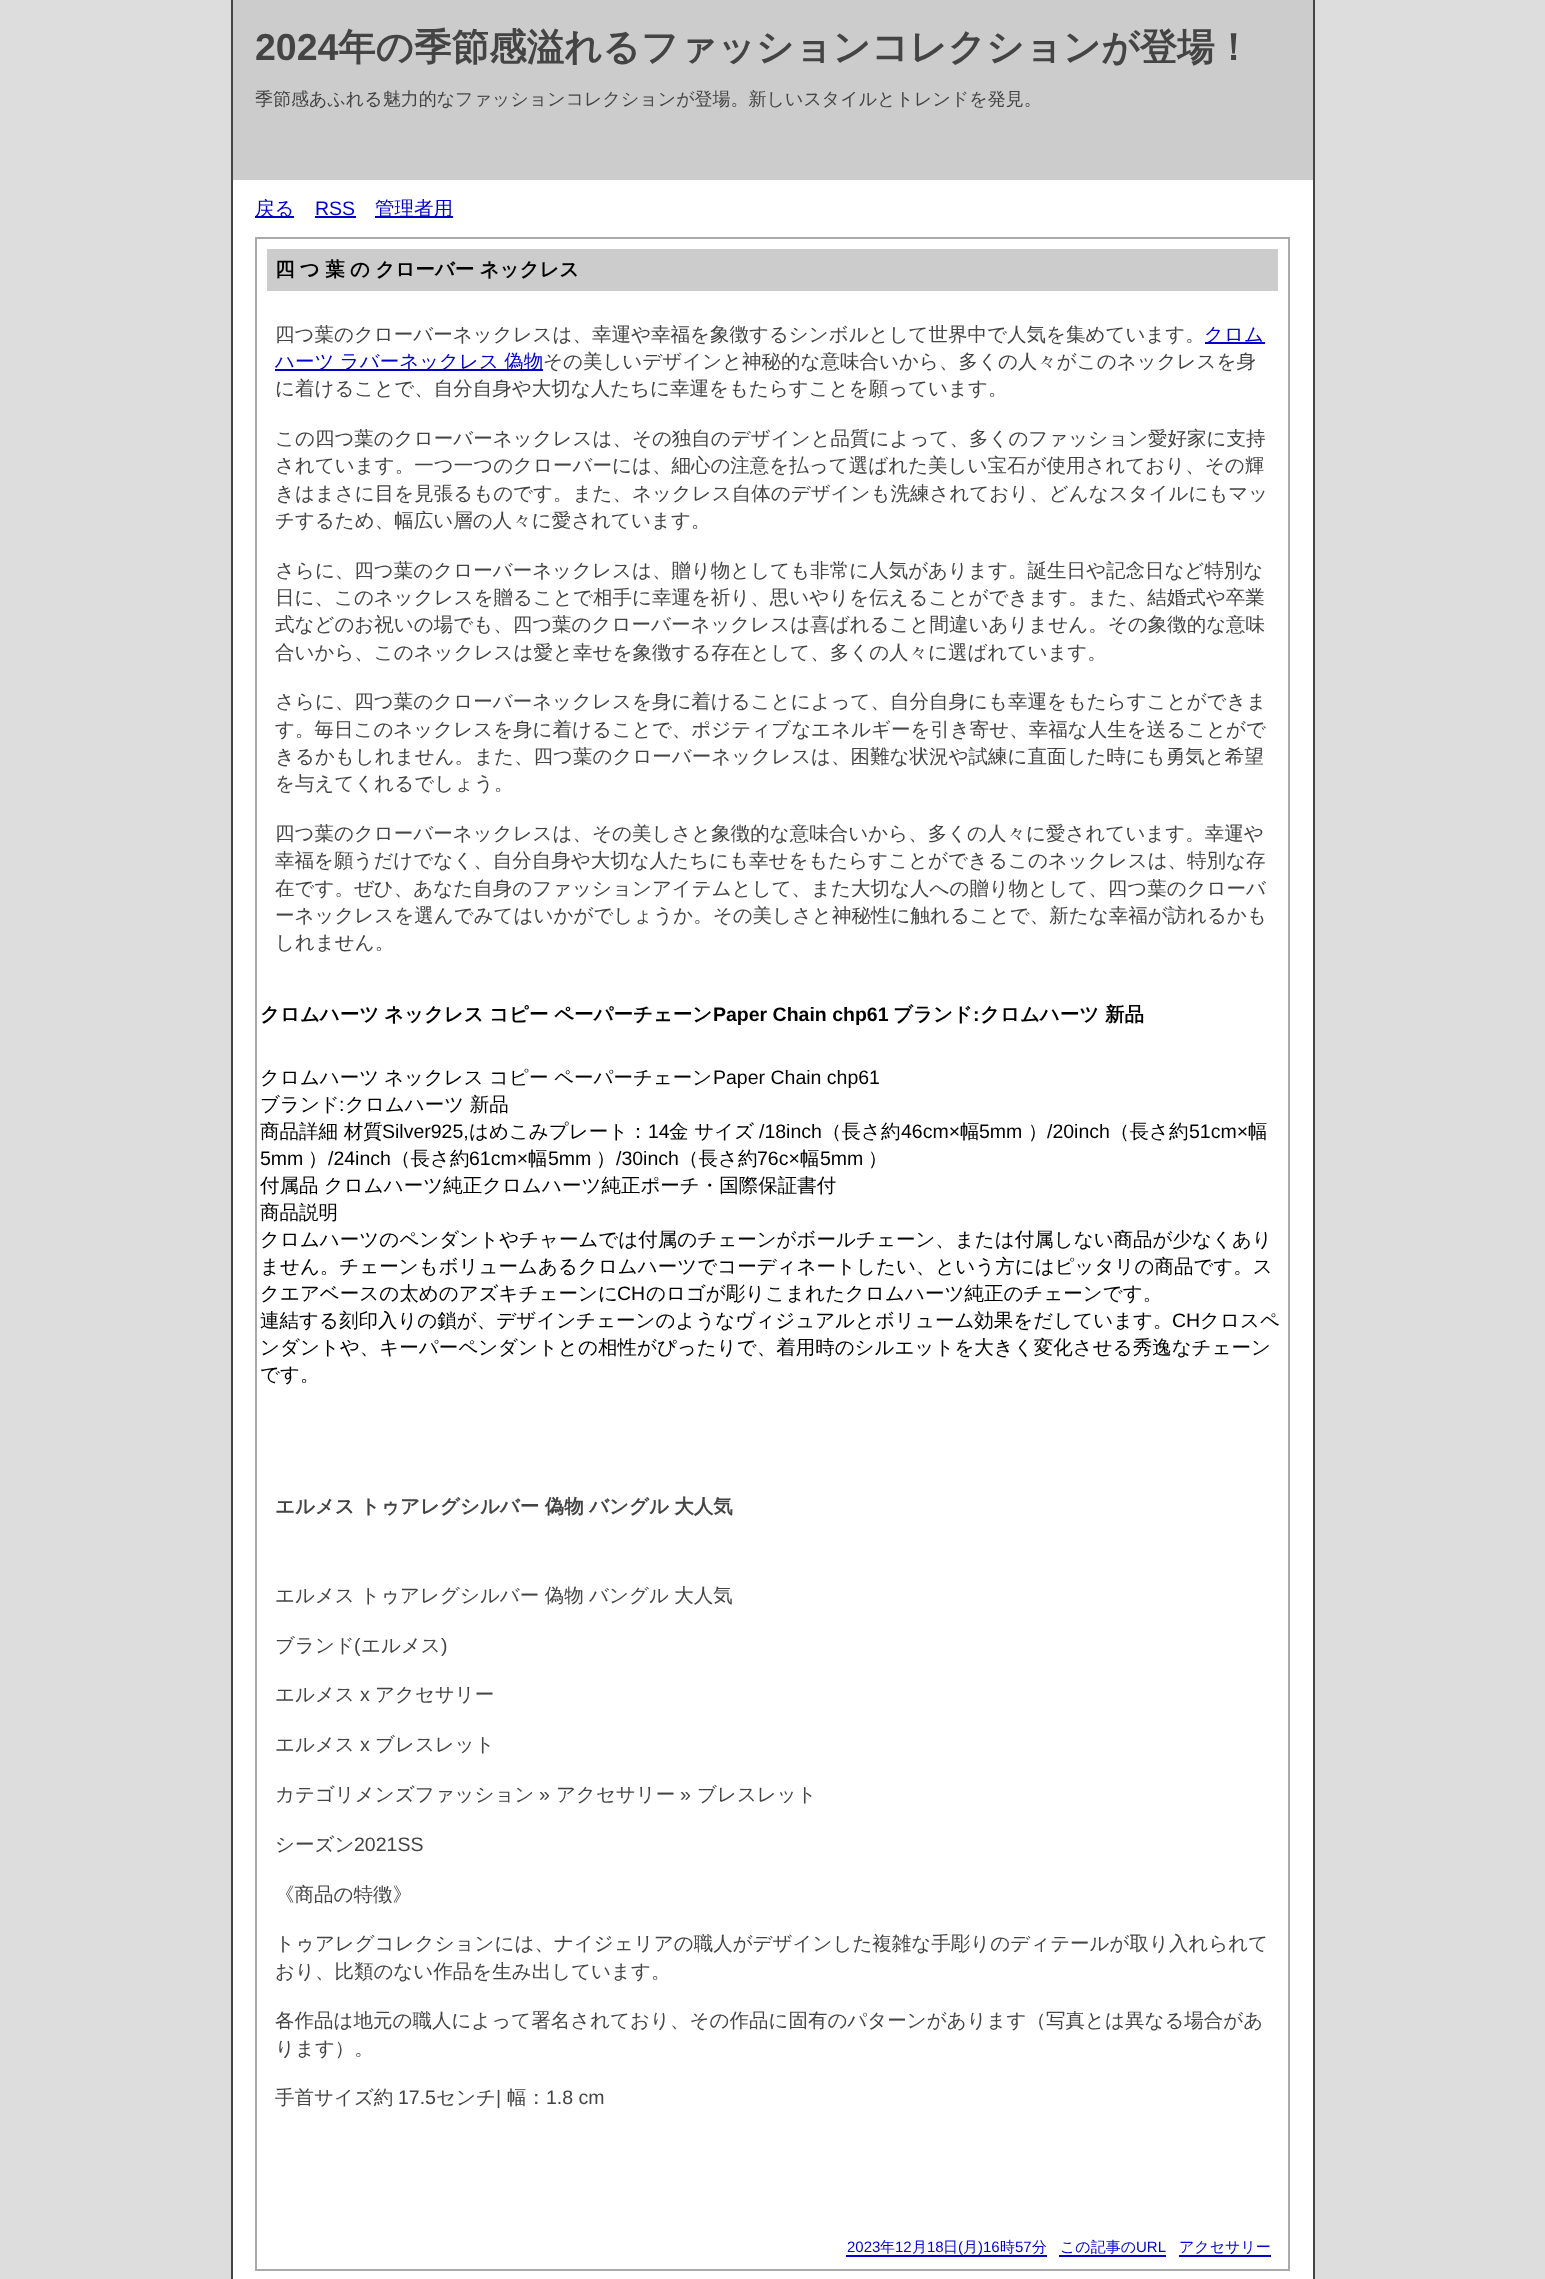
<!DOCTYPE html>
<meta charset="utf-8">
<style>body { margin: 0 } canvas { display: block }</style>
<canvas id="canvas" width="1545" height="2279"></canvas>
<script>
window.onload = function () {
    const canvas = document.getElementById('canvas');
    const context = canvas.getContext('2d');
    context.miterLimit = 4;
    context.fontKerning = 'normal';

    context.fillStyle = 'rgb(221, 221, 221)';
    context.fillRect(0, 0, 1545, 2279);
    context.fillStyle = 'rgb(255, 255, 255)';
    context.fillRect(233, 180, 1080, 2099);
    context.fillStyle = 'rgb(68, 68, 68)';
    context.fillRect(1313, 0, 2, 2279);
    context.fillRect(231, 0, 2, 2279);
    context.fillStyle = 'rgb(204, 204, 204)';
    context.fillRect(233, 0, 1080, 180);
    context.fillStyle = 'rgb(0, 0, 204)';
    context.fillRect(255, 216, 39, 2);
    context.fillRect(315, 216, 41, 2);
    context.fillRect(375, 216, 78, 2);
    context.strokeStyle = 'rgb(170, 170, 170)';
    context.lineWidth = 2;
    context.strokeRect(256, 238, 1033, 2032);
    context.fillStyle = 'rgb(204, 204, 204)';
    context.fillRect(267, 249, 1011, 42);
    context.fillStyle = 'rgb(0, 0, 204)';
    context.fillRect(1205, 342, 60, 2);
    context.fillRect(275, 369, 268, 2);
    context.fillRect(846, 2255, 201, 2);
    context.fillRect(1059, 2255, 107, 2);
    context.fillRect(1179, 2255, 92, 2);
    context.font = 'bold 37.5px Liberation Sans';
    context.fillStyle = 'rgb(68, 68, 68)';
    context.fillText('2024', 255, 60);
    context.font = 'bold 37.5px WenQuanYi Zen Hei';
    context.fillText('年の季節感溢れるファッションコレクションが登場！', 338, 60);
    context.font = '500 18px WenQuanYi Zen Hei';
    context.fillText('季節感あふれる魅力的なファッションコレクションが登場。新しいスタイルとトレンドを発見。', 255, 105);
    context.font = '500 19.5px WenQuanYi Zen Hei';
    context.fillStyle = 'rgb(0, 0, 204)';
    context.fillText('戻る', 255, 215);
    context.font = '19.5px Liberation Sans';
    context.fillText('RSS', 315, 215);
    context.font = '500 19.5px WenQuanYi Zen Hei';
    context.fillText('管理者用', 375, 215);
    context.wordSpacing = '-0.5px';
    context.font = 'bold 19.5px WenQuanYi Zen Hei';
    context.fillStyle = 'rgb(0, 0, 0)';
    context.fillText('四 つ 葉 の クローバー ネックレス', 275, 276);
    context.wordSpacing = '0px';
    context.font = '500 19.5px WenQuanYi Zen Hei';
    context.fillStyle = 'rgb(68, 68, 68)';
    context.fillText('四つ葉のクローバーネックレスは、幸運や幸福を象徴するシンボルとして世界中で人気を集めています。', 275, 341);
    context.fillStyle = 'rgb(0, 0, 204)';
    context.fillText('クロム', 1204, 341);
    context.wordSpacing = '-0.5px';
    context.fillText('ハーツ ラバーネックレス 偽物', 275, 368);
    context.wordSpacing = '0px';
    context.fillStyle = 'rgb(68, 68, 68)';
    context.fillText('その美しいデザインと神秘的な意味合いから、多くの人々がこのネックレスを身', 543, 368);
    context.fillText('に着けることで、自分自身や大切な人たちに幸運をもたらすことを願っています。', 275, 395);
    context.fillText('この四つ葉のクローバーネックレスは、その独自のデザインと品質によって、多くのファッション愛好家に支持', 275, 445);
    context.fillText('されています。一つ一つのクローバーには、細心の注意を払って選ばれた美しい宝石が使用されており、その輝', 275, 472);
    context.fillText('きはまさに目を見張るものです。また、ネックレス自体のデザインも洗練されており、どんなスタイルにもマッ', 275, 500);
    context.fillText('チするため、幅広い層の人々に愛されています。', 275, 527);
    context.fillText('さらに、四つ葉のクローバーネックレスは、贈り物としても非常に人気があります。誕生日や記念日など特別な', 275, 577);
    context.fillText('日に、このネックレスを贈ることで相手に幸運を祈り、思いやりを伝えることができます。また、結婚式や卒業', 275, 604);
    context.fillText('式などのお祝いの場でも、四つ葉のクローバーネックレスは喜ばれること間違いありません。その象徴的な意味', 275, 631);
    context.fillText('合いから、このネックレスは愛と幸せを象徴する存在として、多くの人々に選ばれています。', 275, 659);
    context.fillText('さらに、四つ葉のクローバーネックレスを身に着けることによって、自分自身にも幸運をもたらすことができま', 275, 708);
    context.fillText('す。毎日このネックレスを身に着けることで、ポジティブなエネルギーを引き寄せ、幸福な人生を送ることがで', 275, 736);
    context.fillText('きるかもしれません。また、四つ葉のクローバーネックレスは、困難な状況や試練に直面した時にも勇気と希望', 275, 763);
    context.fillText('を与えてくれるでしょう。', 275, 790);
    context.fillText('四つ葉のクローバーネックレスは、その美しさと象徴的な意味合いから、多くの人々に愛されています。幸運や', 275, 840);
    context.fillText('幸福を願うだけでなく、自分自身や大切な人たちにも幸せをもたらすことができるこのネックレスは、特別な存', 275, 867);
    context.fillText('在です。ぜひ、あなた自身のファッションアイテムとして、また大切な人への贈り物として、四つ葉のクローバ', 275, 895);
    context.fillText('ーネックレスを選んでみてはいかがでしょうか。その美しさと神秘性に触れることで、新たな幸福が訪れるかも', 275, 922);
    context.fillText('しれません。', 275, 949);
    context.font = 'bold 19.5px WenQuanYi Zen Hei';
    context.fillStyle = 'rgb(0, 0, 0)';
    context.fillText('クロムハーツ', 260, 1021);
    context.fillText('ネックレス', 384, 1021);
    context.fillText('コピー', 489, 1021);
    context.fillText('ペーパーチェーン', 554, 1021);
    context.font = 'bold 19.5px Liberation Sans';
    context.fillText('Paper Chain chp61', 713, 1021);
    context.font = 'bold 19.5px WenQuanYi Zen Hei';
    context.fillText('ブランド', 893, 1021);
    context.font = 'bold 19.5px Liberation Sans';
    context.fillText(':', 973, 1021);
    context.font = 'bold 19.5px WenQuanYi Zen Hei';
    context.fillText('クロムハーツ', 980, 1021);
    context.fillText('新品', 1105, 1021);
    context.font = '500 19.5px WenQuanYi Zen Hei';
    context.fillText('クロムハーツ', 260, 1084);
    context.fillText('ネックレス', 384, 1084);
    context.fillText('コピー', 489, 1084);
    context.fillText('ペーパーチェーン', 554, 1084);
    context.font = '19.5px Liberation Sans';
    context.fillText('Paper Chain chp61', 713, 1084);
    context.font = '500 19.5px WenQuanYi Zen Hei';
    context.fillText('ブランド', 260, 1111);
    context.font = '19.5px Liberation Sans';
    context.fillText(':', 339, 1111);
    context.wordSpacing = '-0.5px';
    context.font = '500 19.5px WenQuanYi Zen Hei';
    context.fillText('クロムハーツ 新品', 345, 1111);
    context.wordSpacing = '0px';
    context.fillText('商品詳細 材質', 260, 1138);
    context.font = '19.5px Liberation Sans';
    context.fillText('Silver925,', 382, 1138);
    context.font = '500 19.5px WenQuanYi Zen Hei';
    context.fillText('はめこみプレート：', 469, 1138);
    context.font = '19.5px Liberation Sans';
    context.fillText('14', 648, 1138);
    context.font = '500 19.5px WenQuanYi Zen Hei';
    context.fillText('金 サイズ', 669, 1138);
    context.font = '19.5px Liberation Sans';
    context.fillText('/18inch', 759, 1138);
    context.font = '500 19.5px WenQuanYi Zen Hei';
    context.fillText('（長さ約', 822, 1138);
    context.font = '19.5px Liberation Sans';
    context.fillText('46cm×', 901, 1138);
    context.font = '500 19.5px WenQuanYi Zen Hei';
    context.fillText('幅', 960, 1138);
    context.font = '19.5px Liberation Sans';
    context.fillText('5mm', 979, 1138);
    context.font = '500 19.5px WenQuanYi Zen Hei';
    context.fillText('）', 1028, 1138);
    context.font = '19.5px Liberation Sans';
    context.fillText('/20inch', 1047, 1138);
    context.font = '500 19.5px WenQuanYi Zen Hei';
    context.fillText('（長さ約', 1110, 1138);
    context.font = '19.5px Liberation Sans';
    context.fillText('51cm×', 1189, 1138);
    context.font = '500 19.5px WenQuanYi Zen Hei';
    context.fillText('幅', 1248, 1138);
    context.font = '19.5px Liberation Sans';
    context.fillText('5mm', 260, 1165);
    context.font = '500 19.5px WenQuanYi Zen Hei';
    context.fillText('）', 308, 1165);
    context.font = '19.5px Liberation Sans';
    context.fillText('/24inch', 328, 1165);
    context.font = '500 19.5px WenQuanYi Zen Hei';
    context.fillText('（長さ約', 391, 1165);
    context.font = '19.5px Liberation Sans';
    context.fillText('61cm×', 469, 1165);
    context.font = '500 19.5px WenQuanYi Zen Hei';
    context.fillText('幅', 528, 1165);
    context.font = '19.5px Liberation Sans';
    context.fillText('5mm', 548, 1165);
    context.font = '500 19.5px WenQuanYi Zen Hei';
    context.fillText('）', 596, 1165);
    context.font = '19.5px Liberation Sans';
    context.fillText('/30inch', 616, 1165);
    context.font = '500 19.5px WenQuanYi Zen Hei';
    context.fillText('（長さ約', 679, 1165);
    context.font = '19.5px Liberation Sans';
    context.fillText('76c×', 757, 1165);
    context.font = '500 19.5px WenQuanYi Zen Hei';
    context.fillText('幅', 800, 1165);
    context.font = '19.5px Liberation Sans';
    context.fillText('5mm', 820, 1165);
    context.font = '500 19.5px WenQuanYi Zen Hei';
    context.fillText('）', 868, 1165);
    context.wordSpacing = '-0.5px';
    context.fillText('付属品 クロムハーツ純正クロムハーツ純正ポーチ・国際保証書付', 260, 1192);
    context.wordSpacing = '0px';
    context.fillText('商品説明', 260, 1219);
    context.fillText('クロムハーツのペンダントやチャームでは付属のチェーンがボールチェーン、または付属しない商品が少なくあり', 260, 1246);
    context.fillText('ません。チェーンもボリュームあるクロムハーツでコーディネートしたい、という方にはピッタリの商品です。ス', 260, 1273);
    context.fillText('クエアベースの太めのアズキチェーンに', 260, 1300);
    context.font = '19.5px Liberation Sans';
    context.fillText('CH', 617, 1300);
    context.font = '500 19.5px WenQuanYi Zen Hei';
    context.fillText('のロゴが彫りこまれたクロムハーツ純正のチェーンです。', 646, 1300);
    context.fillText('連結する刻印入りの鎖が、デザインチェーンのようなヴィジュアルとボリューム効果をだしています。', 260, 1327);
    context.font = '19.5px Liberation Sans';
    context.fillText('CH', 1172, 1327);
    context.font = '500 19.5px WenQuanYi Zen Hei';
    context.fillText('クロスペ', 1200, 1327);
    context.fillText('ンダントや、キーパーペンダントとの相性がぴったりで、着用時のシルエットを大きく変化させる秀逸なチェーン', 260, 1354);
    context.fillText('です。', 260, 1381);
    context.wordSpacing = '-0.5px';
    context.font = 'bold 19.5px WenQuanYi Zen Hei';
    context.fillStyle = 'rgb(68, 68, 68)';
    context.fillText('エルメス トゥアレグシルバー 偽物 バングル 大人気', 275, 1513);
    context.font = '500 19.5px WenQuanYi Zen Hei';
    context.fillText('エルメス トゥアレグシルバー 偽物 バングル 大人気', 275, 1602);
    context.wordSpacing = '0px';
    context.fillText('ブランド', 275, 1652);
    context.font = '19.5px Liberation Sans';
    context.fillText('(', 354, 1652);
    context.font = '500 19.5px WenQuanYi Zen Hei';
    context.fillText('エルメス', 361, 1652);
    context.font = '19.5px Liberation Sans';
    context.fillText(')', 441, 1652);
    context.font = '500 19.5px WenQuanYi Zen Hei';
    context.fillText('エルメス', 275, 1701);
    context.font = '19.5px Liberation Sans';
    context.fillText('x', 360, 1701);
    context.font = '500 19.5px WenQuanYi Zen Hei';
    context.fillText('アクセサリー', 375, 1701);
    context.fillText('エルメス', 275, 1751);
    context.font = '19.5px Liberation Sans';
    context.fillText('x', 360, 1751);
    context.font = '500 19.5px WenQuanYi Zen Hei';
    context.fillText('ブレスレット', 375, 1751);
    context.fillText('カテゴリメンズファッション', 275, 1801);
    context.font = '19.5px Liberation Sans';
    context.fillText('»', 539, 1801);
    context.font = '500 19.5px WenQuanYi Zen Hei';
    context.fillText('アクセサリー', 556, 1801);
    context.font = '19.5px Liberation Sans';
    context.fillText('»', 680, 1801);
    context.font = '500 19.5px WenQuanYi Zen Hei';
    context.fillText('ブレスレット', 697, 1801);
    context.fillText('シーズン', 275, 1851);
    context.font = '19.5px Liberation Sans';
    context.fillText('2021SS', 354, 1851);
    context.font = '500 19.5px WenQuanYi Zen Hei';
    context.fillText('《商品の特徴》', 275, 1901);
    context.fillText('トゥアレグコレクションには、ナイジェリアの職人がデザインした複雑な手彫りのディテールが取り入れられて', 275, 1950);
    context.fillText('おり、比類のない作品を生み出しています。', 275, 1978);
    context.fillText('各作品は地元の職人によって署名されており、その作品に固有のパターンがあります（写真とは異なる場合があ', 275, 2027);
    context.fillText('ります）。', 275, 2055);
    context.fillText('手首サイズ約', 275, 2104);
    context.font = '19.5px Liberation Sans';
    context.fillText('17.5', 398, 2104);
    context.font = '500 19.5px WenQuanYi Zen Hei';
    context.fillText('センチ', 436, 2104);
    context.font = '19.5px Liberation Sans';
    context.fillText('|', 496, 2104);
    context.font = '500 19.5px WenQuanYi Zen Hei';
    context.fillText('幅：', 507, 2104);
    context.font = '19.5px Liberation Sans';
    context.fillText('1.8 cm', 546, 2104);
    context.font = '15px Liberation Sans';
    context.fillStyle = 'rgb(0, 0, 204)';
    context.fillText('2023', 847, 2252);
    context.font = '500 15px WenQuanYi Zen Hei';
    context.fillText('年', 880, 2252);
    context.font = '15px Liberation Sans';
    context.fillText('12', 895, 2252);
    context.font = '500 15px WenQuanYi Zen Hei';
    context.fillText('月', 912, 2252);
    context.font = '15px Liberation Sans';
    context.fillText('18', 927, 2252);
    context.font = '500 15px WenQuanYi Zen Hei';
    context.fillText('日', 943, 2252);
    context.font = '15px Liberation Sans';
    context.fillText('(', 958, 2252);
    context.font = '500 15px WenQuanYi Zen Hei';
    context.fillText('月', 963, 2252);
    context.font = '15px Liberation Sans';
    context.fillText(')16', 978, 2252);
    context.font = '500 15px WenQuanYi Zen Hei';
    context.fillText('時', 1000, 2252);
    context.font = '15px Liberation Sans';
    context.fillText('57', 1015, 2252);
    context.font = '500 15px WenQuanYi Zen Hei';
    context.fillText('分', 1032, 2252);
    context.fillText('この記事の', 1060, 2252);
    context.font = '15px Liberation Sans';
    context.fillText('URL', 1136, 2252);
    context.font = '500 15px WenQuanYi Zen Hei';
    context.fillText('アクセサリー', 1179, 2252);
};
</script>
